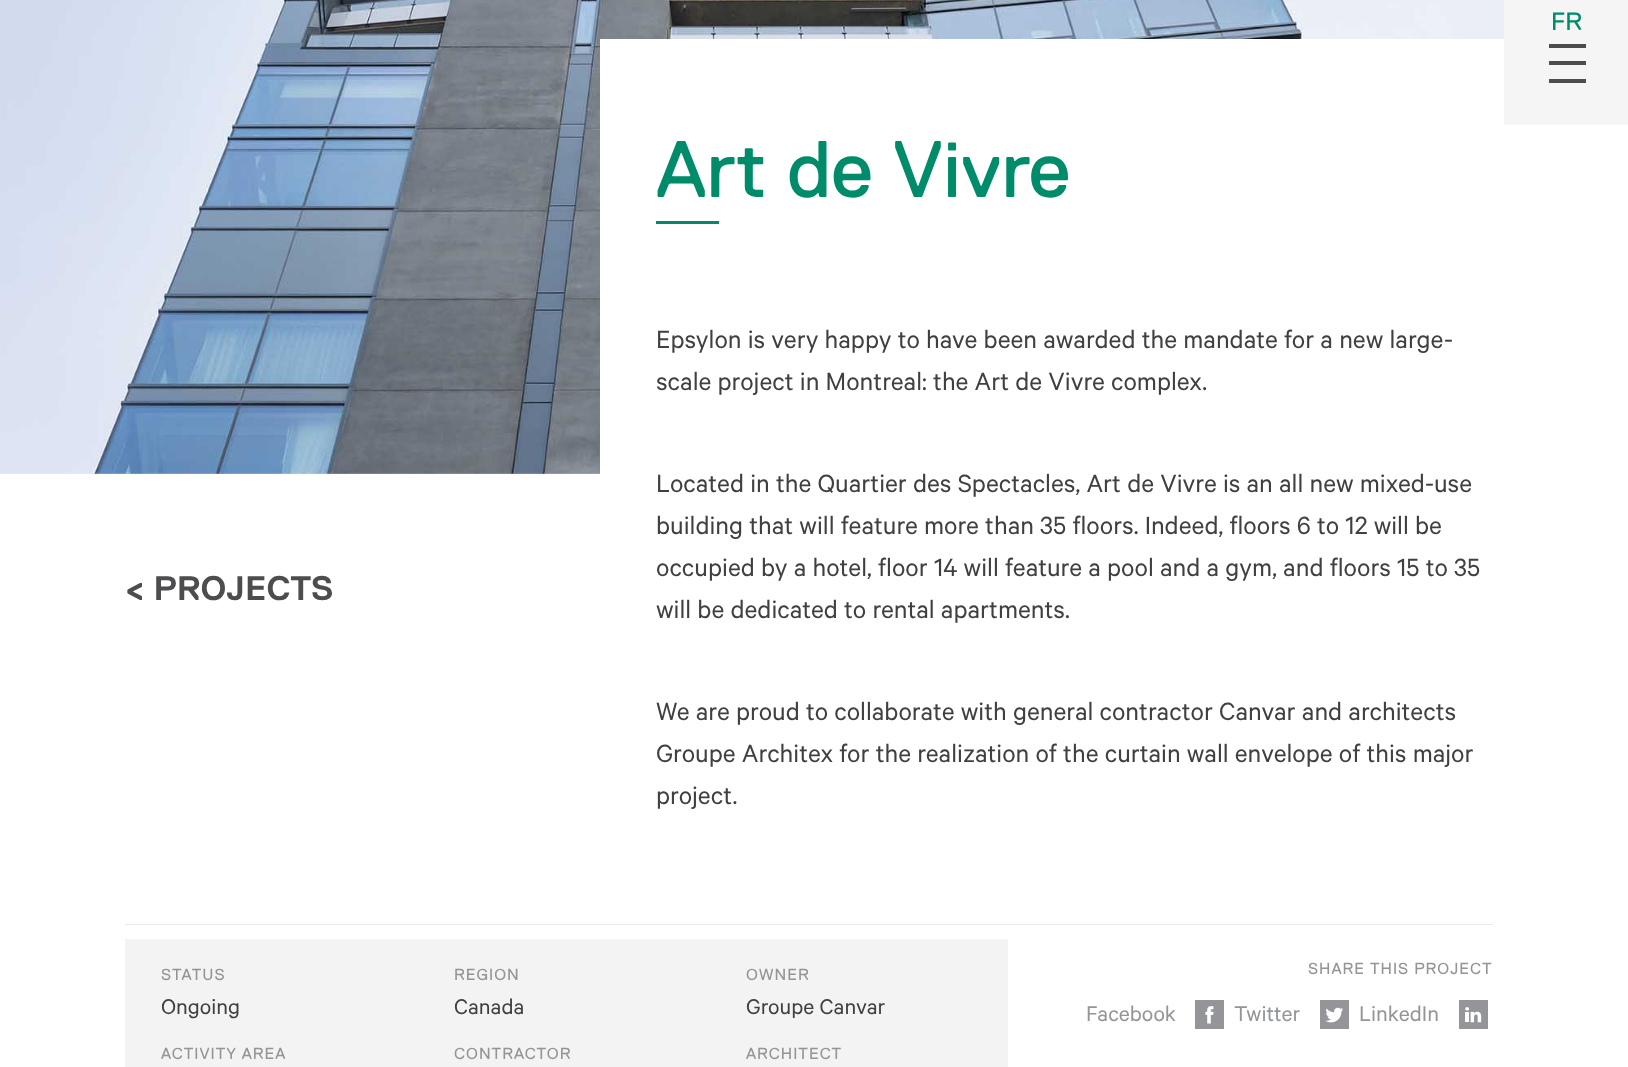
<!DOCTYPE html>
<meta charset="utf-8">
<style>body { margin: 0 } canvas { display: block }</style>
<canvas id="canvas" width="1628" height="1067"></canvas>
<img id="img1" src="images/1.png" hidden>
<img id="img2" src="images/2.png" hidden>
<img id="img3" src="images/3.png" hidden>
<img id="img4" src="images/4.png" hidden>
<script>
window.onload = function () {
    const canvas = document.getElementById('canvas');
    const context = canvas.getContext('2d');
    context.miterLimit = 4;
    context.fontKerning = 'normal';

    context.fillStyle = 'rgb(255, 255, 255)';
    context.fillRect(0, 0, 1628, 1067);
    context.fillStyle = 'rgb(245, 245, 245)';
    context.fillRect(1504, 0, 124, 125);
    context.fillStyle = 'rgb(76, 77, 79)';
    context.fillRect(1549, 44, 37, 4);
    context.fillRect(1549, 61, 37, 4);
    context.fillRect(1549, 79, 37, 4);
    context.drawImage(document.getElementById('img1'), 0, 0, 1504, 474);
    context.fillStyle = 'rgb(255, 255, 255)';
    context.fillRect(600, 39, 904, 435);
    context.fillStyle = 'rgb(0, 140, 106)';
    context.fillRect(656, 221, 63, 3);
    context.fillStyle = 'rgb(234, 234, 234)';
    context.fillRect(125, 924, 1368, 1);
    context.fillStyle = 'rgb(243, 243, 244)';
    context.fillRect(125, 939, 883, 128);
    context.fillStyle = 'rgb(147, 149, 152)';
    context.fillRect(1195, 1000, 29, 29);
    context.drawImage(document.getElementById('img2'), 1205, 1006, 9, 18);
    context.fillRect(1320, 1000, 29, 29);
    context.drawImage(document.getElementById('img3'), 1325, 1007, 18, 16);
    context.fillRect(1459, 1000, 29, 29);
    context.drawImage(document.getElementById('img4'), 1465, 1007, 17, 16);
    context.font = '25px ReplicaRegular';
    context.fillStyle = 'rgb(0, 140, 106)';
    context.fillText('FR', 1551, 30);
    context.font = '80px ReplicaRegular';
    context.fillText('Art de Vivre', 656, 197);
    context.font = 'bold 34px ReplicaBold';
    context.fillStyle = 'rgb(77, 77, 79)';
    context.fillText('< PROJECTS', 125, 600);
    context.font = '28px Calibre';
    context.fillStyle = 'rgb(64, 64, 64)';
    context.fillText('Epsylon is very happy to have been awarded the mandate for a new large-', 656, 348);
    context.fillText('scale project in Montreal: the Art de Vivre complex.', 656, 390);
    context.fillText('Located in the Quartier des Spectacles, Art de Vivre is an all new mixed-use', 656, 492);
    context.fillText('building that will feature more than 35 floors. Indeed, floors 6 to 12 will be', 656, 534);
    context.fillText('occupied by a hotel, floor 14 will feature a pool and a gym, and floors 15 to 35', 656, 576);
    context.fillText('will be dedicated to rental apartments.', 656, 618);
    context.fillText('We are proud to collaborate with general contractor Canvar and architects', 656, 720);
    context.fillText('Groupe Architex for the realization of the curtain wall envelope of this major', 656, 762);
    context.fillText('project.', 656, 804);
    context.letterSpacing = '1px';
    context.font = '16px ReplicaRegular';
    context.fillStyle = 'rgb(147, 149, 152)';
    context.fillText('STATUS', 161, 980);
    context.letterSpacing = '0px';
    context.font = '24px Calibre';
    context.fillStyle = 'rgb(64, 64, 64)';
    context.fillText('Ongoing', 161, 1014);
    context.letterSpacing = '1px';
    context.font = '16px ReplicaRegular';
    context.fillStyle = 'rgb(147, 149, 152)';
    context.fillText('REGION', 454, 980);
    context.letterSpacing = '0px';
    context.font = '24px Calibre';
    context.fillStyle = 'rgb(64, 64, 64)';
    context.fillText('Canada', 454, 1014);
    context.letterSpacing = '1px';
    context.font = '16px ReplicaRegular';
    context.fillStyle = 'rgb(147, 149, 152)';
    context.fillText('OWNER', 746, 980);
    context.letterSpacing = '0px';
    context.font = '24px Calibre';
    context.fillStyle = 'rgb(64, 64, 64)';
    context.fillText('Groupe Canvar', 746, 1014);
    context.letterSpacing = '1px';
    context.font = '16px ReplicaRegular';
    context.fillStyle = 'rgb(147, 149, 152)';
    context.fillText('ACTIVITY AREA', 161, 1059);
    context.fillText('CONTRACTOR', 454, 1059);
    context.fillText('ARCHITECT', 746, 1059);
    context.fillText('SHARE THIS PROJECT', 1308, 974);
    context.letterSpacing = '0px';
    context.font = '24px Calibre';
    context.fillText('Facebook', 1086, 1021);
    context.fillText('Twitter', 1234, 1021);
    context.fillText('LinkedIn', 1359, 1021);
};
</script>
